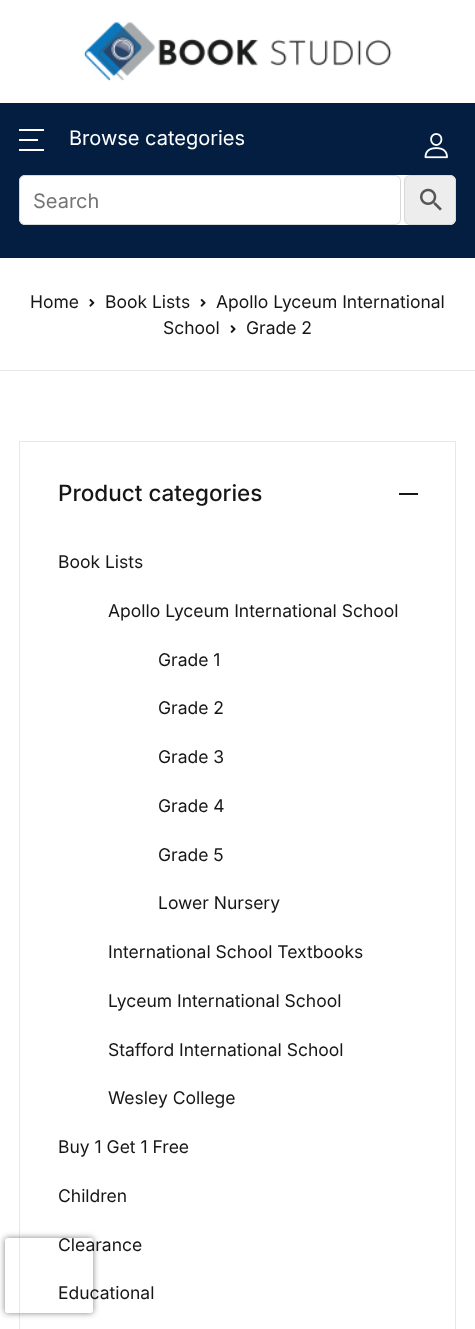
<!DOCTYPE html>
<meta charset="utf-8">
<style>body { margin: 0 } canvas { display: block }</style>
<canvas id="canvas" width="475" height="1329"></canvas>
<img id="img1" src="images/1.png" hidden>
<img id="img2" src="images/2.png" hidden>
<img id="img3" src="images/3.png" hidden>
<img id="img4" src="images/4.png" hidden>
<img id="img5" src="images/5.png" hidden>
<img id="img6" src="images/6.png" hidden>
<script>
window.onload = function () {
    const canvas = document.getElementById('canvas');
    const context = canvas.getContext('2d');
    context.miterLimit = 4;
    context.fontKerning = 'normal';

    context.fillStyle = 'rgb(255, 255, 255)';
    context.fillRect(0, 0, 475, 1329);
    context.drawImage(document.getElementById('img1'), 83, 22, 309, 59);
    context.fillStyle = 'rgb(4, 30, 66)';
    context.fillRect(0, 103, 475, 155);
    context.fillStyle = 'rgb(255, 255, 255)';
    context.fillRect(19, 129, 25, 2);
    context.fillRect(19, 139, 19, 2);
    context.fillRect(19, 149, 25, 2);
    context.drawImage(document.getElementById('img2'), 424, 133, 24, 26);
    context.beginPath();
    context.roundRect(19, 175, 437, 50, 6);
    context.fill();
    context.beginPath();
    context.roundRect(19.5, 175.5, 381, 49, 5.5);
    context.strokeStyle = 'rgb(216, 216, 216)';
    context.stroke();
    context.fillStyle = 'rgb(237, 237, 237)';
    context.beginPath();
    context.roundRect(404.5, 175.5, 51, 49, 5.5);
    context.fill();
    context.stroke();
    context.drawImage(document.getElementById('img3'), 420, 188, 22, 23);
    context.fillStyle = 'rgb(234, 232, 228)';
    context.fillRect(0, 370, 475, 1);
    context.drawImage(document.getElementById('img4'), 89, 299, 6, 8);
    context.drawImage(document.getElementById('img5'), 200, 299, 6, 8);
    context.drawImage(document.getElementById('img6'), 230, 325, 6, 8);
    context.strokeStyle = 'rgb(234, 232, 228)';
    context.strokeRect(19.5, 441.5, 436, 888);
    context.save();
    context.beginPath();
    context.moveTo(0, 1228);
    context.lineTo(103, 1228);
    context.lineTo(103, 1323);
    context.lineTo(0, 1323);
    context.closePath();
    context.moveTo(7.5, 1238);
    context.lineTo(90.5, 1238);
    context.bezierCurveTo(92, 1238, 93, 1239, 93, 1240.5);
    context.lineTo(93, 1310.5);
    context.bezierCurveTo(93, 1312, 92, 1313, 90.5, 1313);
    context.lineTo(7.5, 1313);
    context.bezierCurveTo(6, 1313, 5, 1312, 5, 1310.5);
    context.lineTo(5, 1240.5);
    context.bezierCurveTo(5, 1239, 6, 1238, 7.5, 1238);
    context.closePath();
    context.clip('evenodd');
    context.fillStyle = 'rgb(128, 128, 128)';
    context.filter = 'blur(3px)';
    context.beginPath();
    context.roundRect(5, 1238, 88, 75, 2.5);
    context.fill();
    context.filter = 'none';
    context.restore();
    context.fillStyle = 'rgb(22, 22, 25)';
    context.fillRect(399, 493, 19, 2);
    context.font = '20px Inter';
    context.fillStyle = 'rgb(255, 255, 255)';
    context.fillText('Browse categories', 69, 145);
    context.fillStyle = 'rgb(117, 117, 117)';
    context.fillText('Search', 33, 208);
    context.font = '17.5px Inter';
    context.fillStyle = 'rgb(22, 22, 25)';
    context.fillText('Home', 30, 308);
    context.fillText('Book Lists', 105, 308);
    context.fillText('Apollo Lyceum International', 216, 308);
    context.fillText('School', 163, 334);
    context.fillText('Grade 2', 246, 334);
    context.font = '500 22.5px Inter';
    context.fillText('Product categories', 58, 501);
    context.font = '17.5px Inter';
    context.fillText('Book Lists', 58, 568);
    context.fillText('Apollo Lyceum International School', 108, 617);
    context.fillText('Grade 1', 158, 666);
    context.fillText('Grade 2', 158, 714);
    context.fillText('Grade 3', 158, 763);
    context.fillText('Grade 4', 158, 812);
    context.fillText('Grade 5', 158, 861);
    context.fillText('Lower Nursery', 158, 909);
    context.fillText('International School Textbooks', 108, 958);
    context.fillText('Lyceum International School', 108, 1007);
    context.fillText('Stafford International School', 108, 1056);
    context.fillText('Wesley College', 108, 1104);
    context.fillText('Buy 1 Get 1 Free', 58, 1153);
    context.fillText('Children', 58, 1202);
    context.fillText('Clearance', 58, 1251);
    context.fillText('Educational', 58, 1299);
};
</script>
